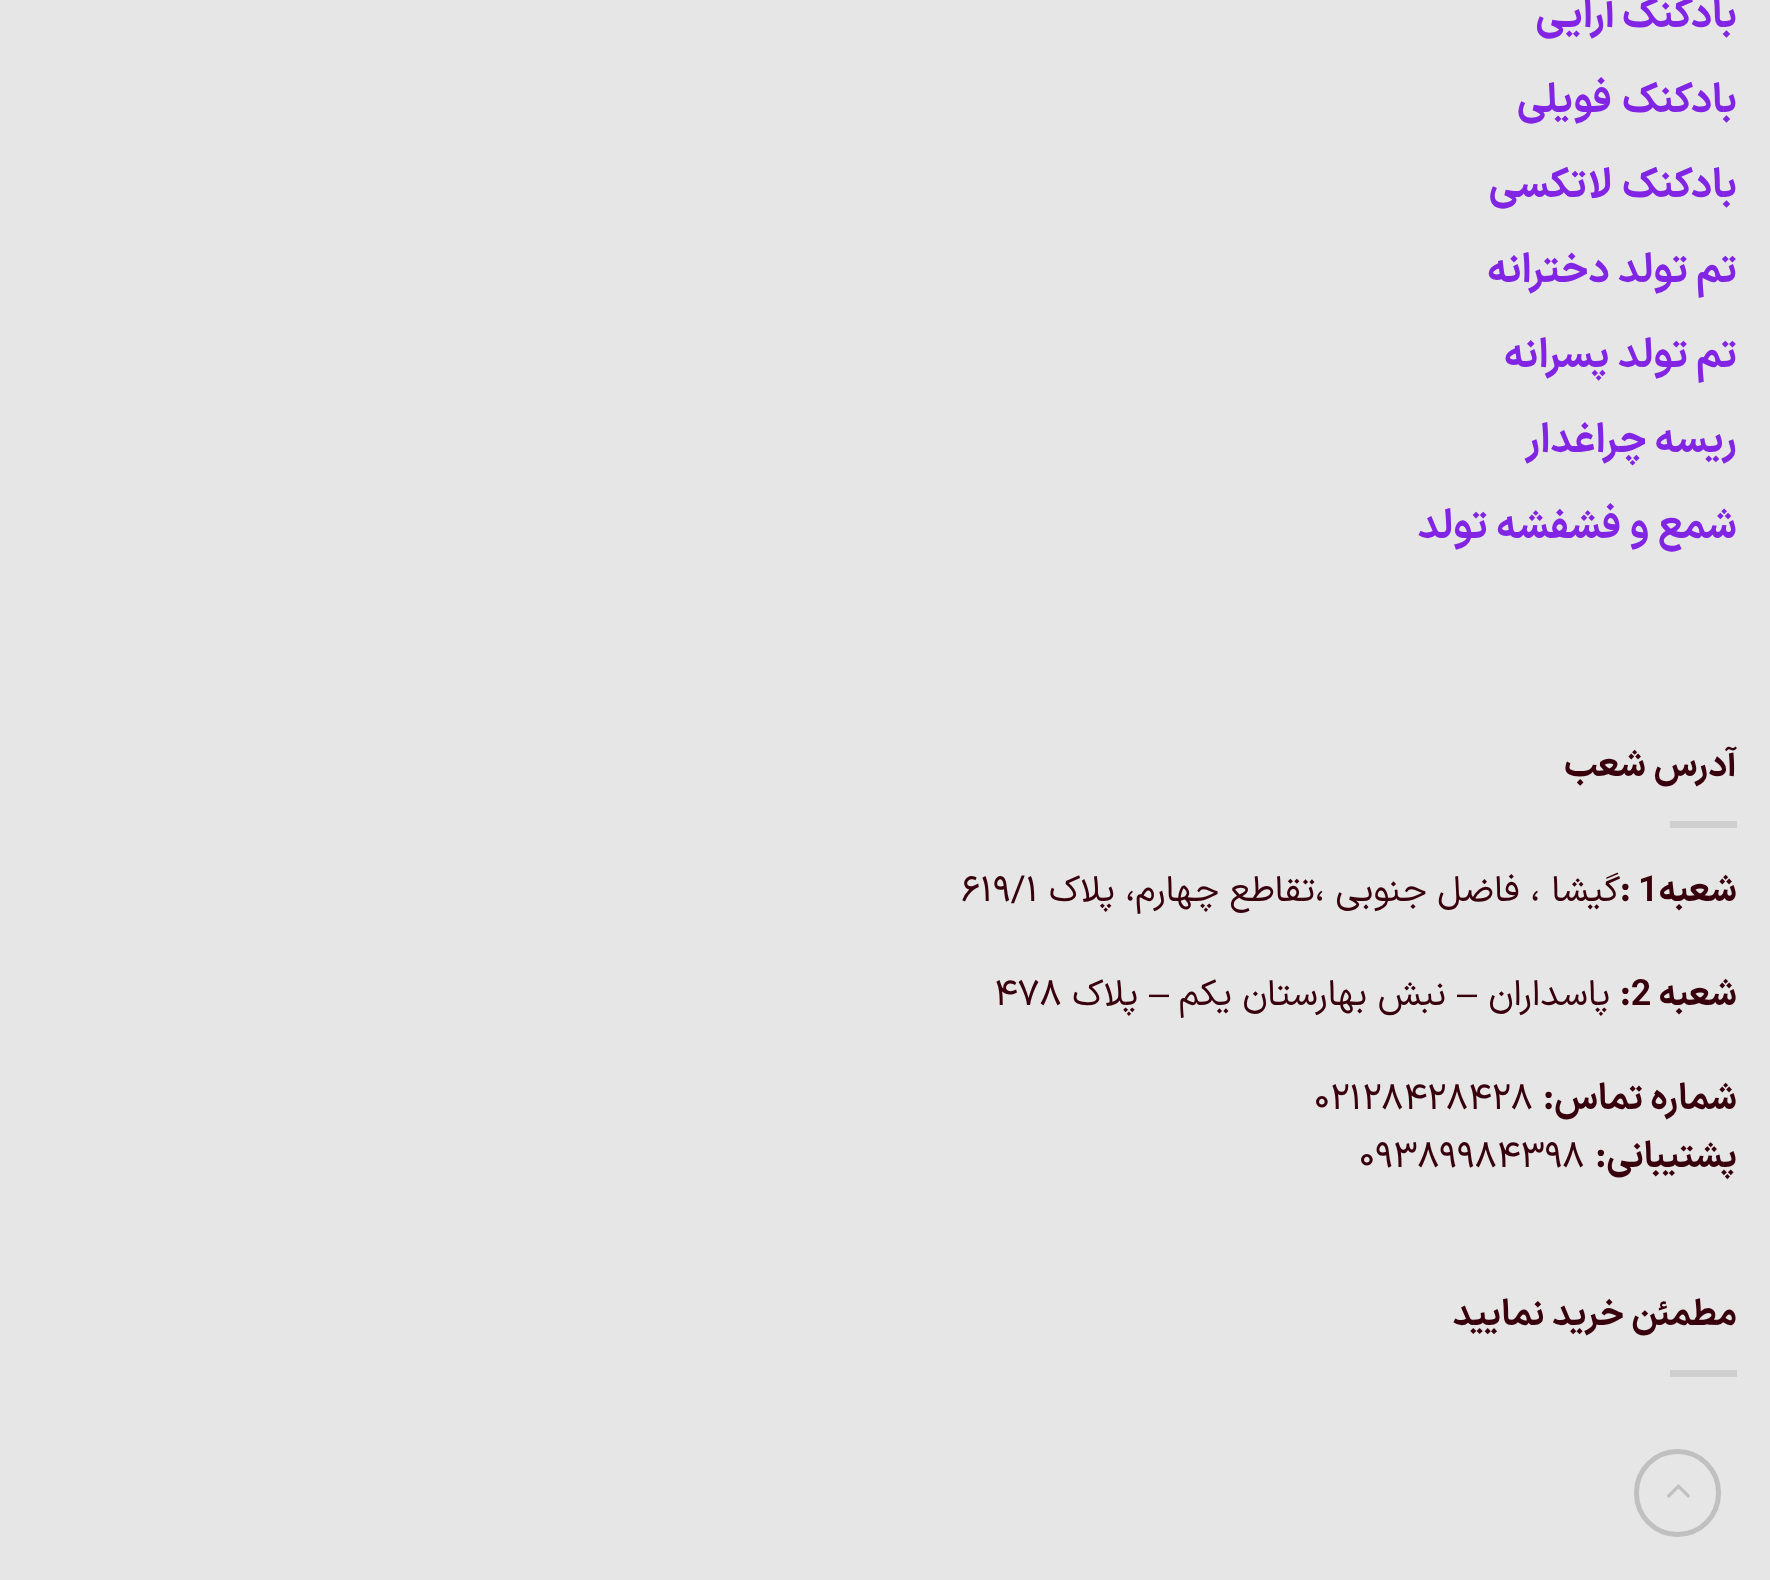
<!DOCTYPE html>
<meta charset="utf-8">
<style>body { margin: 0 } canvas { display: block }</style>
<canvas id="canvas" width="1770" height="1580"></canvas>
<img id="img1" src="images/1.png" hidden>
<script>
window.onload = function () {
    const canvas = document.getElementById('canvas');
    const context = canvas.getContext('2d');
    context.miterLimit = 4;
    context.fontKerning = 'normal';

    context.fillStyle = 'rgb(230, 230, 230)';
    context.fillRect(0, 0, 1770, 1580);
    context.fillStyle = 'rgb(207, 207, 207)';
    context.fillRect(1670, 821, 67, 7);
    context.fillRect(1670, 1370, 67, 7);
    context.beginPath();
    context.roundRect(1636.5, 1451.5, 82, 83, 41);
    context.strokeStyle = 'rgb(192, 192, 192)';
    context.lineWidth = 5;
    context.stroke();
    context.drawImage(document.getElementById('img1'), 1667, 1484, 23, 14);
    context.wordSpacing = '-2px';
    context.direction = 'rtl';
    context.font = 'bold 40.5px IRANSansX';
    context.fillStyle = 'rgb(130, 36, 227)';
    context.fillText('بادکنک آرایی', 1737, 27);
    context.wordSpacing = '2px';
    context.fillText('بادکنک فویلی', 1737, 112);
    context.fillText('بادکنک لاتکسی', 1737, 197);
    context.wordSpacing = '0px';
    context.fillText('تم تولد دخترانه', 1737, 282);
    context.fillText('تم تولد پسرانه', 1737, 367);
    context.fillText('ریسه چراغدار', 1737, 452);
    context.fillText('شمع و فشفشه تولد', 1737, 538);
    context.font = 'bold 36px IRANSansX';
    context.fillStyle = 'rgb(56, 0, 12)';
    context.fillText('آدرس شعب', 1737, 776);
    context.fillText('شعبه', 1737, 901);
    context.direction = 'ltr';
    context.fillText(': 1', 1620, 901);
    context.direction = 'rtl';
    context.font = '36px IRANSansX';
    context.fillText('گيشا ، فاضل جنوبی ،تقاطع چهارم، پلاک', 1620, 901);
    context.direction = 'ltr';
    context.font = '36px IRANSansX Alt';
    context.fillText('619/1', 961, 901);
    context.direction = 'rtl';
    context.font = 'bold 36px IRANSansX';
    context.fillText('شعبه', 1737, 1005);
    context.direction = 'ltr';
    context.fillText(':2', 1620, 1005);
    context.direction = 'rtl';
    context.font = '36px IRANSansX';
    context.fillText('پاسداران', 1610, 1005);
    context.font = '36px Liberation Sans';
    context.fillText('–', 1477, 1005);
    context.font = '36px IRANSansX';
    context.fillText('نبش بهارستان یکم', 1446, 1005);
    context.font = '36px Liberation Sans';
    context.fillText('–', 1169, 1005);
    context.font = '36px IRANSansX';
    context.fillText('پلاک', 1138, 1005);
    context.direction = 'ltr';
    context.fillText('۴۷۸', 994, 1005);
    context.direction = 'rtl';
    context.font = 'bold 36px IRANSansX';
    context.fillText('شماره تماس:', 1737, 1109);
    context.direction = 'ltr';
    context.font = '36px IRANSansX Alt';
    context.fillText('02128428428', 1314, 1109);
    context.direction = 'rtl';
    context.font = 'bold 36px IRANSansX';
    context.fillText('پشتیبانی:', 1737, 1167);
    context.direction = 'ltr';
    context.font = '36px IRANSansX Alt';
    context.fillText('09389984398', 1359, 1167);
    context.direction = 'rtl';
    context.font = 'bold 36px IRANSansX';
    context.fillText('مطمئن خرید نمایید', 1737, 1325);
};
</script>
